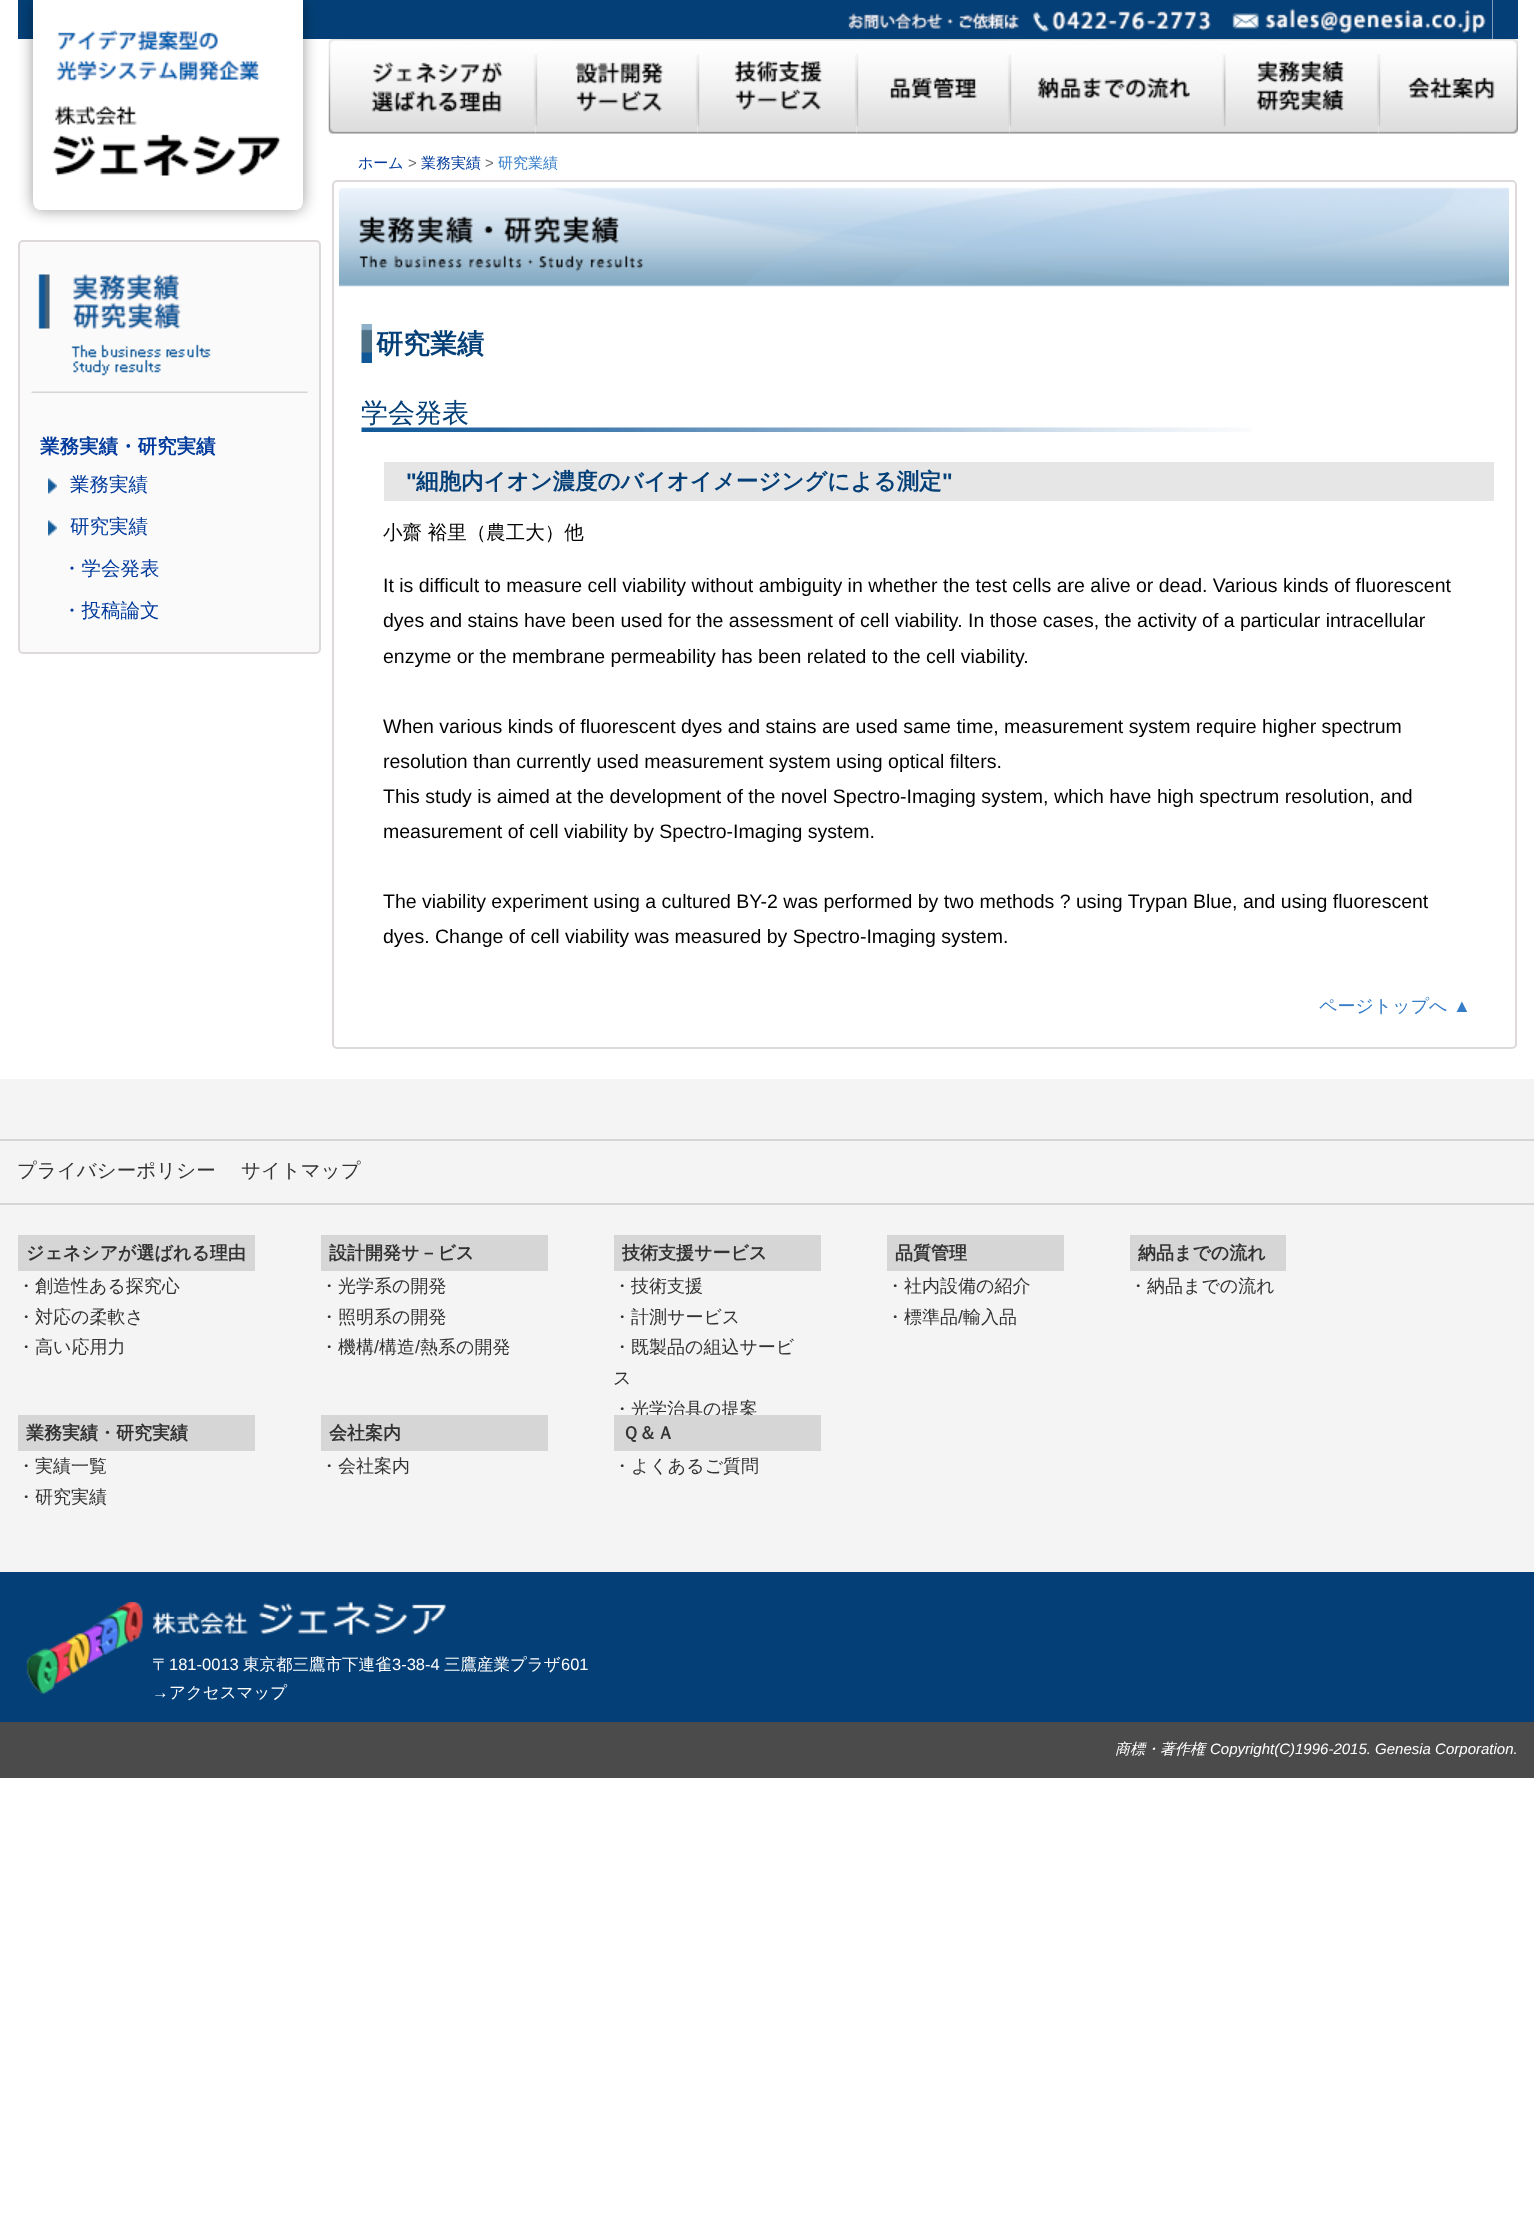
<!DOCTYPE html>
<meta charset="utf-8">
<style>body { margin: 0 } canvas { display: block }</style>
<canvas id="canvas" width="1534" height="2230"></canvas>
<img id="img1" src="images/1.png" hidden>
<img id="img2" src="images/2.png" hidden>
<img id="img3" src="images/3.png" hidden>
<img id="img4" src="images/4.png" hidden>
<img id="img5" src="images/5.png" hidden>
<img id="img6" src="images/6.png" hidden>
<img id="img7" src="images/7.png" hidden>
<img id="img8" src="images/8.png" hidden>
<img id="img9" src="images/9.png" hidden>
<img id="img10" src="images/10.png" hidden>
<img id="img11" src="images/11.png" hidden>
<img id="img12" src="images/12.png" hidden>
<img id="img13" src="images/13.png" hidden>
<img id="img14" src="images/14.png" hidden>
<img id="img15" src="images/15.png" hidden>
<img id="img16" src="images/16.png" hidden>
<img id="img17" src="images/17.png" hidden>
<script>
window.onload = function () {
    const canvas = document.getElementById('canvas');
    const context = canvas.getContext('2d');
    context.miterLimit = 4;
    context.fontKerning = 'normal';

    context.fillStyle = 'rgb(255, 255, 255)';
    context.fillRect(0, 0, 1534, 2230);
    context.fillStyle = 'rgb(4, 64, 119)';
    context.fillRect(18, 0, 1500, 39);
    context.fillStyle = 'rgba(0, 0, 0, 0.4)';
    context.filter = 'blur(7.5px)';
    context.beginPath();
    context.roundRect(33, 0, 270, 210, 8);
    context.fill();
    context.filter = 'none';
    context.fillStyle = 'rgb(255, 255, 255)';
    context.beginPath();
    context.roundRect(33, 0, 270, 210, [0, 0, 8, 8]);
    context.fill();
    context.drawImage(document.getElementById('img1'), 34, 29, 268, 181);
    context.drawImage(document.getElementById('img2'), 833, 0, 384, 39);
    context.fillRect(1492, 0, 1, 39);
    context.drawImage(document.getElementById('img3'), 1216, 0, 277, 39);
    context.drawImage(document.getElementById('img4'), 328, 39, 208, 95);
    context.drawImage(document.getElementById('img5'), 535, 39, 163, 95);
    context.drawImage(document.getElementById('img6'), 697, 39, 160, 95);
    context.drawImage(document.getElementById('img7'), 856, 39, 154, 95);
    context.drawImage(document.getElementById('img8'), 1009, 39, 215, 95);
    context.drawImage(document.getElementById('img9'), 1224, 39, 155, 95);
    context.drawImage(document.getElementById('img10'), 1378, 39, 140, 95);
    context.fillStyle = 'rgb(250, 250, 250)';
    context.beginPath();
    context.roundRect(19, 241, 301, 412, 4);
    context.fill();
    context.strokeStyle = 'rgb(221, 217, 219)';
    context.lineWidth = 2;
    context.stroke();
    context.drawImage(document.getElementById('img11'), 31, 274, 277, 119);
    context.drawImage(document.getElementById('img12'), 48, 478, 9, 16);
    context.drawImage(document.getElementById('img12'), 48, 520, 9, 16);
    context.beginPath();
    context.roundRect(333, 181, 1183, 867, 4);
    context.stroke();
    context.drawImage(document.getElementById('img13'), 339, 187, 1170, 100);
    context.drawImage(document.getElementById('img14'), 361, 324, 11, 39);
    context.drawImage(document.getElementById('img15'), 361, 427, 891, 5);
    context.fillStyle = 'rgb(230, 230, 230)';
    context.fillRect(384, 462, 1110, 39);
    context.fillStyle = 'rgb(244, 244, 244)';
    context.fillRect(0, 1079, 1534, 493);
    context.fillStyle = 'rgb(214, 214, 214)';
    context.fillRect(0, 1139, 1534, 2);
    context.fillRect(0, 1203, 1534, 2);
    context.fillRect(18, 1235, 237, 36);
    context.fillRect(321, 1235, 227, 36);
    context.fillRect(614, 1235, 207, 36);
    context.fillRect(887, 1235, 177, 36);
    context.fillRect(1130, 1235, 156, 36);
    context.fillRect(18, 1415, 237, 36);
    context.fillRect(321, 1415, 227, 36);
    context.fillStyle = 'rgb(4, 63, 119)';
    context.fillRect(0, 1572, 1534, 150);
    context.drawImage(document.getElementById('img16'), 26, 1602, 117, 92);
    context.drawImage(document.getElementById('img17'), 153, 1602, 293, 33);
    context.fillStyle = 'rgb(75, 75, 75)';
    context.fillRect(0, 1722, 1534, 56);
    context.font = 'bold 19.5px WenQuanYi Zen Hei';
    context.fillStyle = 'rgb(1, 58, 156)';
    context.fillText('業務実績・研究実績', 40, 453);
    context.font = '500 19.5px WenQuanYi Zen Hei';
    context.fillText('業務実績', 70, 491);
    context.fillText('研究実績', 70, 533);
    context.fillText('・学会発表', 62, 575);
    context.fillText('・投稿論文', 62, 617);
    context.font = '500 15px WenQuanYi Zen Hei';
    context.fillText('ホーム', 358, 168);
    context.font = '15px Liberation Sans';
    context.fillStyle = 'rgb(112, 112, 112)';
    context.fillText('>', 408, 168);
    context.font = '500 15px WenQuanYi Zen Hei';
    context.fillStyle = 'rgb(1, 58, 156)';
    context.fillText('業務実績', 421, 168);
    context.font = '15px Liberation Sans';
    context.fillStyle = 'rgb(112, 112, 112)';
    context.fillText('>', 485, 168);
    context.font = '500 15px WenQuanYi Zen Hei';
    context.fillStyle = 'rgb(53, 125, 200)';
    context.fillText('研究業績', 498, 168);
    context.font = 'bold 27px WenQuanYi Zen Hei';
    context.fillStyle = 'rgb(4, 63, 119)';
    context.fillText('研究業績', 376, 353);
    context.font = '500 27px WenQuanYi Zen Hei';
    context.fillText('学会発表', 361, 422);
    context.font = 'bold 22.5px Liberation Sans';
    context.fillText('"', 406, 489);
    context.font = 'bold 22.5px WenQuanYi Zen Hei';
    context.fillText('細胞内イオン濃度のバイオイメージングによる測定', 416, 489);
    context.font = 'bold 22.5px Liberation Sans';
    context.fillText('"', 942, 489);
    context.font = '500 19.5px WenQuanYi Zen Hei';
    context.fillStyle = 'rgb(0, 0, 0)';
    context.fillText('小齋 裕里（農工大）他', 383, 539);
    context.font = '19.5px Liberation Sans';
    context.fillText('It is difficult to measure cell viability without ambiguity in whether the test cells are alive or dead. Various kinds of fluorescent', 383, 592);
    context.fillText('dyes and stains have been used for the assessment of cell viability. In those cases, the activity of a particular intracellular', 383, 627);
    context.fillText('enzyme or the membrane permeability has been related to the cell viability.', 383, 663);
    context.fillText('When various kinds of fluorescent dyes and stains are used same time, measurement system require higher spectrum', 383, 733);
    context.fillText('resolution than currently used measurement system using optical filters.', 383, 768);
    context.fillText('This study is aimed at the development of the novel Spectro-Imaging system, which have high spectrum resolution, and', 383, 803);
    context.fillText('measurement of cell viability by Spectro-Imaging system.', 383, 838);
    context.fillText('The viability experiment using a cultured BY-2 was performed by two methods ? using Trypan Blue, and using fluorescent', 383, 908);
    context.fillText('dyes. Change of cell viability was measured by Spectro-Imaging system.', 383, 943);
    context.font = '500 18px WenQuanYi Zen Hei';
    context.fillStyle = 'rgb(53, 125, 200)';
    context.fillText('ページトップへ', 1319, 1012);
    context.font = '18px Liberation Sans';
    context.fillText('▲', 1453, 1012);
    context.font = '500 19.5px WenQuanYi Zen Hei';
    context.fillStyle = 'rgb(51, 51, 51)';
    context.fillText('プライバシーポリシー', 17, 1177);
    context.fillText('サイトマップ', 241, 1177);
    context.font = 'bold 18px WenQuanYi Zen Hei';
    context.fillText('ジェネシアが選ばれる理由', 26, 1259);
    context.font = '500 18px WenQuanYi Zen Hei';
    context.fillText('・創造性ある探究心', 17, 1292);
    context.fillText('・対応の柔軟さ', 17, 1323);
    context.fillText('・高い応用力', 17, 1353);
    context.font = 'bold 18px WenQuanYi Zen Hei';
    context.fillText('設計開発サ－ビス', 329, 1259);
    context.font = '500 18px WenQuanYi Zen Hei';
    context.fillText('・光学系の開発', 320, 1292);
    context.fillText('・照明系の開発', 320, 1323);
    context.fillText('・機構', 320, 1353);
    context.font = '18px Liberation Sans';
    context.fillText('/', 374, 1353);
    context.font = '500 18px WenQuanYi Zen Hei';
    context.fillText('構造', 379, 1353);
    context.font = '18px Liberation Sans';
    context.fillText('/', 415, 1353);
    context.font = '500 18px WenQuanYi Zen Hei';
    context.fillText('熱系の開発', 420, 1353);
    context.font = 'bold 18px WenQuanYi Zen Hei';
    context.fillText('技術支援サービス', 622, 1259);
    context.font = '500 18px WenQuanYi Zen Hei';
    context.fillText('・技術支援', 613, 1292);
    context.fillText('・計測サービス', 613, 1323);
    context.fillText('・既製品の組込サービ', 613, 1353);
    context.fillText('ス', 613, 1384);
    context.fillText('・光学治具の提案', 613, 1415);
    context.font = 'bold 18px WenQuanYi Zen Hei';
    context.fillText('品質管理', 895, 1259);
    context.font = '500 18px WenQuanYi Zen Hei';
    context.fillText('・社内設備の紹介', 886, 1292);
    context.fillText('・標準品', 886, 1323);
    context.font = '18px Liberation Sans';
    context.fillText('/', 958, 1323);
    context.font = '500 18px WenQuanYi Zen Hei';
    context.fillText('輸入品', 963, 1323);
    context.font = 'bold 18px WenQuanYi Zen Hei';
    context.fillText('納品までの流れ', 1138, 1259);
    context.font = '500 18px WenQuanYi Zen Hei';
    context.fillText('・納品までの流れ', 1129, 1292);
    context.font = 'bold 18px WenQuanYi Zen Hei';
    context.fillText('業務実績・研究実績', 26, 1439);
    context.font = '500 18px WenQuanYi Zen Hei';
    context.fillText('・実績一覧', 17, 1472);
    context.fillText('・研究実績', 17, 1503);
    context.font = 'bold 18px WenQuanYi Zen Hei';
    context.fillText('会社案内', 329, 1439);
    context.font = '500 18px WenQuanYi Zen Hei';
    context.fillText('・会社案内', 320, 1472);
    context.fillStyle = 'rgb(214, 214, 214)';
    context.fillRect(614, 1415, 207, 36);
    context.font = 'bold 18px WenQuanYi Zen Hei';
    context.fillStyle = 'rgb(51, 51, 51)';
    context.fillText('Ｑ＆Ａ', 622, 1439);
    context.font = '500 18px WenQuanYi Zen Hei';
    context.fillText('・よくあるご質問', 613, 1472);
    context.font = '500 16.5px WenQuanYi Zen Hei';
    context.fillStyle = 'rgb(255, 255, 255)';
    context.fillText('〒', 152, 1670);
    context.font = '16.5px Liberation Sans';
    context.fillText('181-0013', 169, 1670);
    context.font = '500 16.5px WenQuanYi Zen Hei';
    context.fillText('東京都三鷹市下連雀', 243, 1670);
    context.font = '16.5px Liberation Sans';
    context.fillText('3-38-4', 392, 1670);
    context.font = '500 16.5px WenQuanYi Zen Hei';
    context.fillText('三鷹産業プラザ', 444, 1670);
    context.font = '16.5px Liberation Sans';
    context.fillText('601', 561, 1670);
    context.fillText('→', 152, 1698);
    context.font = '500 16.5px WenQuanYi Zen Hei';
    context.fillText('アクセスマップ', 169, 1698);
    context.font = 'italic 500 15px WenQuanYi Zen Hei';
    context.fillText('商標・著作権', 1115, 1754);
    context.font = 'italic 15px Liberation Sans';
    context.fillText('Copyright(C)1996-2015. Genesia Corporation.', 1210, 1754);
};
</script>
